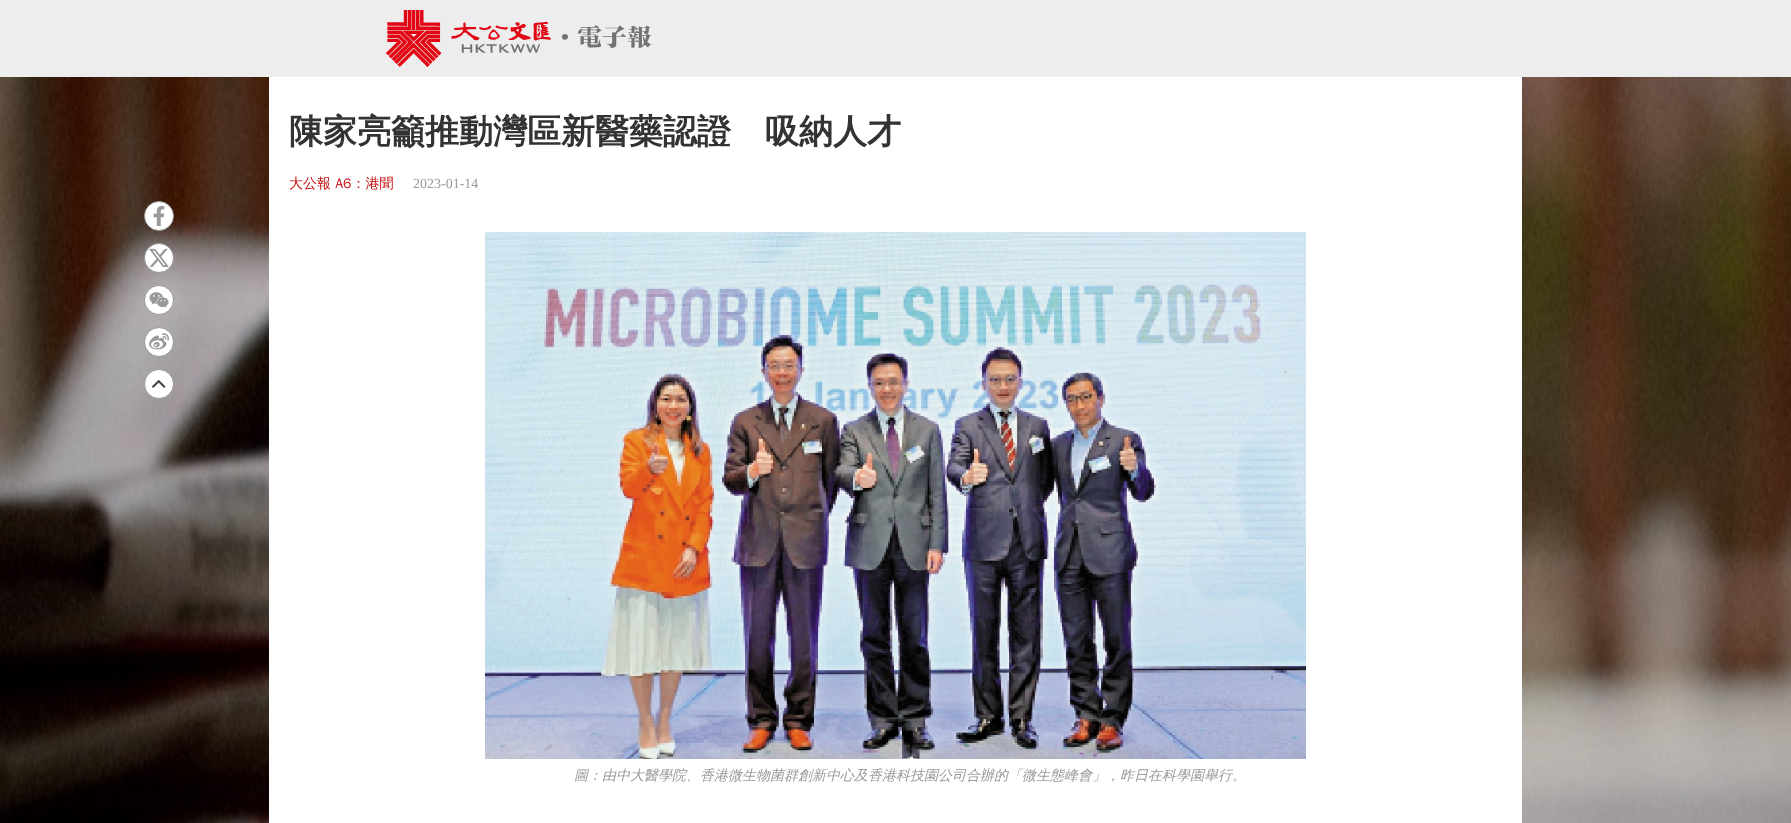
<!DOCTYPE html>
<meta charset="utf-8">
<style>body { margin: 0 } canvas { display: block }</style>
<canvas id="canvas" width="1791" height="823"></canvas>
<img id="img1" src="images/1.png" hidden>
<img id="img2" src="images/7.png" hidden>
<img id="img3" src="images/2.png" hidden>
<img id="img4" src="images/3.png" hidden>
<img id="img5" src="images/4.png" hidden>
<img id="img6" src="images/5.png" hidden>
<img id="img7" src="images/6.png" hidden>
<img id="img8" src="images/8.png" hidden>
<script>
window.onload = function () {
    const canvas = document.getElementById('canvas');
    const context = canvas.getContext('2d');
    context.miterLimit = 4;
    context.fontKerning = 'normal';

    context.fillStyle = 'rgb(255, 255, 255)';
    context.fillRect(0, 0, 1791, 823);
    context.fillStyle = 'rgb(237, 237, 237)';
    context.fillRect(0, 0, 1791, 77);
    context.drawImage(document.getElementById('img1'), 386, 10, 265, 57);
    context.drawImage(document.getElementById('img2'), 0, 77, 1791, 746);
    context.fillStyle = 'rgb(255, 255, 255)';
    context.beginPath();
    context.arc(159, 216, 14.5, 0, 2 * Math.PI);
    context.fill();
    context.strokeStyle = 'rgb(153, 153, 153)';
    context.stroke();
    context.drawImage(document.getElementById('img3'), 153, 206, 12, 20);
    context.beginPath();
    context.arc(159, 258, 14.5, 0, 2 * Math.PI);
    context.fill();
    context.stroke();
    context.drawImage(document.getElementById('img4'), 149, 248, 20, 20);
    context.beginPath();
    context.arc(159, 300, 14.5, 0, 2 * Math.PI);
    context.fill();
    context.stroke();
    context.drawImage(document.getElementById('img5'), 149, 292, 20, 16);
    context.beginPath();
    context.arc(159, 342, 14.5, 0, 2 * Math.PI);
    context.fill();
    context.stroke();
    context.drawImage(document.getElementById('img6'), 149, 333, 20, 17);
    context.beginPath();
    context.arc(159, 384, 14.5, 0, 2 * Math.PI);
    context.fill();
    context.stroke();
    context.drawImage(document.getElementById('img7'), 152, 380, 14, 8);
    context.fillRect(269, 77, 1253, 746);
    context.drawImage(document.getElementById('img8'), 485, 232, 821, 527);
    context.font = 'bold 34px WenQuanYi Zen Hei';
    context.fillStyle = 'rgb(51, 51, 51)';
    context.fillText('陳家亮籲推動灣區新醫藥認證　吸納人才', 289, 143);
    context.font = '500 14px WenQuanYi Zen Hei';
    context.fillStyle = 'rgb(194, 16, 16)';
    context.fillText('大公報 A6：港聞', 289, 188);
    context.font = '14px Liberation Serif';
    context.fillStyle = 'rgb(153, 153, 153)';
    context.fillText('2023-01-14', 413, 188);
    context.font = 'italic 500 14px WenQuanYi Zen Hei';
    context.fillText('圖：由中大醫學院、香港微生物菌群創新中心及香港科技園公司合辦的「微生態峰會」，昨日在科學園舉行。', 574, 780);
};
</script>
